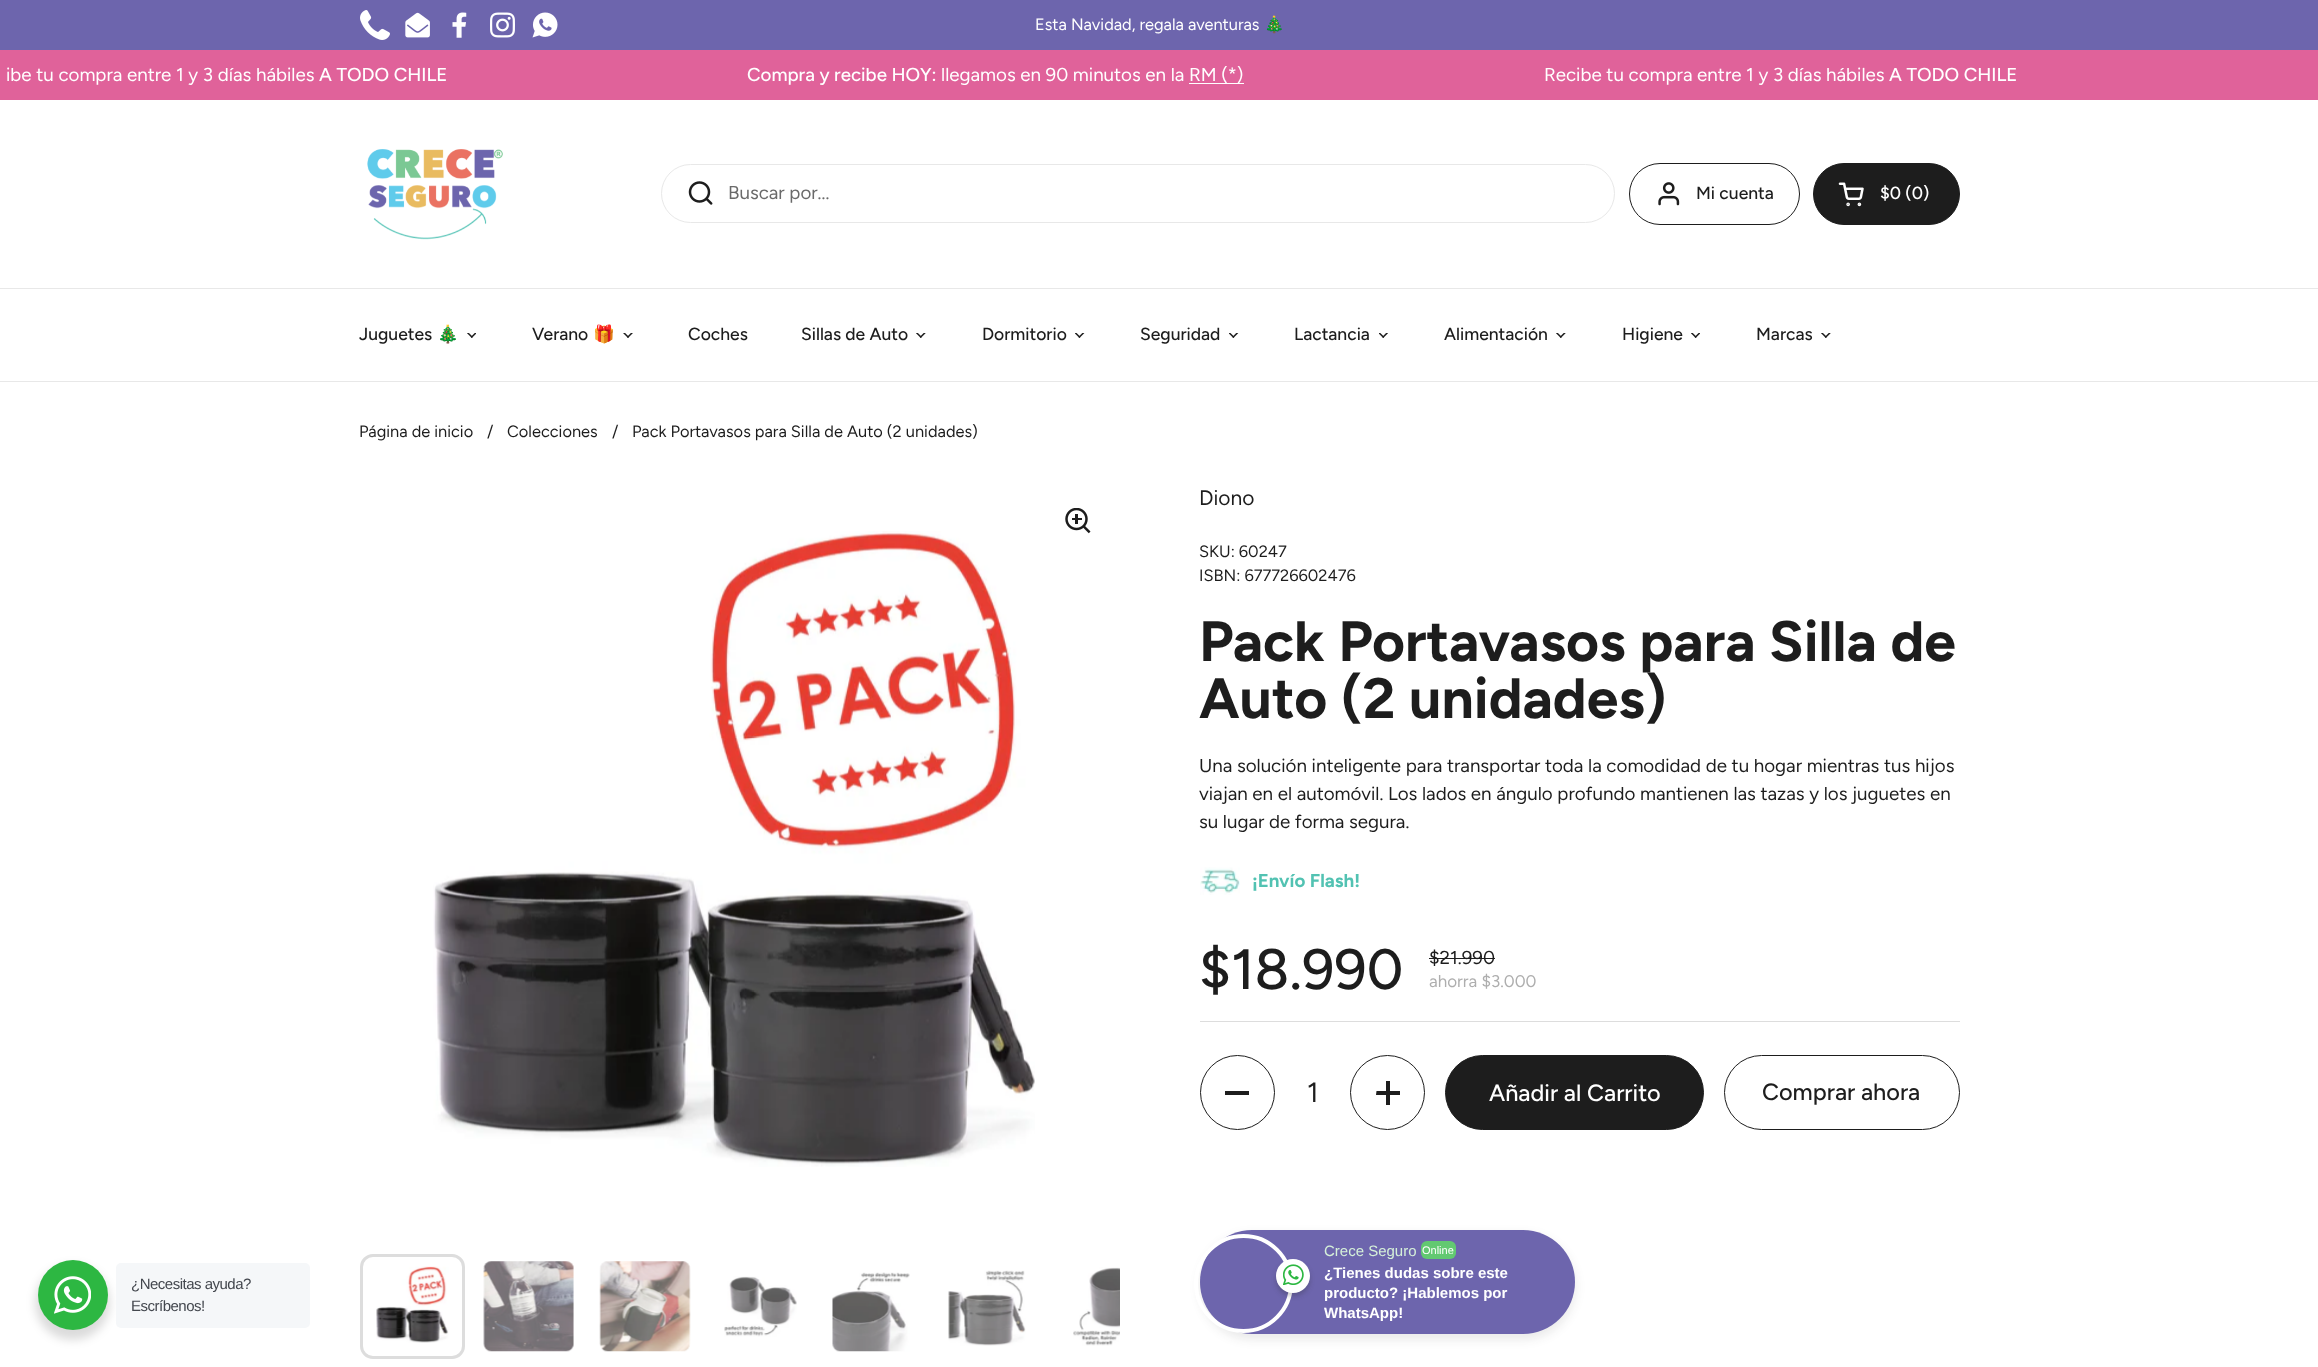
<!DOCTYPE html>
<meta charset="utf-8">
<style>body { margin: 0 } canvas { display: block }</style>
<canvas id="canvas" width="2318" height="1367"></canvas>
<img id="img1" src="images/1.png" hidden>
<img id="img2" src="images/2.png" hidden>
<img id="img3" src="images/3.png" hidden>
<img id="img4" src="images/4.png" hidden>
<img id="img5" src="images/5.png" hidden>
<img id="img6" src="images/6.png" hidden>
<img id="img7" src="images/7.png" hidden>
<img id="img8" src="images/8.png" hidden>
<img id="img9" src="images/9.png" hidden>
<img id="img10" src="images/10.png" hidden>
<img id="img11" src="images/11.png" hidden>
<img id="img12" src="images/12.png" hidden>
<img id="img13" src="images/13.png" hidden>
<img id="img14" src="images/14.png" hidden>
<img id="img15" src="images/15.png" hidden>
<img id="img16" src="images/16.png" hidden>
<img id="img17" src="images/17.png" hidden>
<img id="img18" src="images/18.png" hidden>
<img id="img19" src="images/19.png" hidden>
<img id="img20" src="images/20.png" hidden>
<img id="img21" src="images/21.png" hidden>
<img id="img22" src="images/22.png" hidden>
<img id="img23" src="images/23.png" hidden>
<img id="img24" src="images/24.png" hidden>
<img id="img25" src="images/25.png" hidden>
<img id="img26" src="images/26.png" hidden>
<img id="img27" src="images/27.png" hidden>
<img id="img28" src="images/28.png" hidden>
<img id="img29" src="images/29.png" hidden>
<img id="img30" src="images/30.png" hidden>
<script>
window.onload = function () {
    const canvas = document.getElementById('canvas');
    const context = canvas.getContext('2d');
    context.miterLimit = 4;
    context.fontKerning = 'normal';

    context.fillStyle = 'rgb(255, 255, 255)';
    context.fillRect(0, 0, 2318, 1367);
    context.fillStyle = 'rgb(109, 101, 173)';
    context.fillRect(0, 0, 2318, 50);
    context.drawImage(document.getElementById('img1'), 360, 10, 30, 30);
    context.drawImage(document.getElementById('img2'), 405, 12, 25, 26);
    context.drawImage(document.getElementById('img3'), 452, 12, 15, 26);
    context.drawImage(document.getElementById('img4'), 490, 12, 25, 26);
    context.drawImage(document.getElementById('img5'), 532, 12, 26, 26);
    context.fillStyle = 'rgb(224, 98, 154)';
    context.fillRect(0, 50, 2318, 50);
    context.fillStyle = 'rgb(255, 255, 255)';
    context.fillRect(1189, 83, 55, 1);
    context.fillStyle = 'rgb(232, 232, 232)';
    context.fillRect(0, 288, 2318, 1);
    context.drawImage(document.getElementById('img6'), 367, 149, 136, 91);
    context.beginPath();
    context.roundRect(661.5, 164.5, 953, 58, 29);
    context.strokeStyle = 'rgb(232, 232, 232)';
    context.stroke();
    context.drawImage(document.getElementById('img7'), 688, 181, 25, 24);
    context.beginPath();
    context.roundRect(1629.5, 163.5, 170, 61, 30.5);
    context.strokeStyle = 'rgb(29, 29, 29)';
    context.stroke();
    context.drawImage(document.getElementById('img8'), 1658, 182, 22, 24);
    context.fillStyle = 'rgb(29, 29, 29)';
    context.beginPath();
    context.roundRect(1813.5, 163.5, 146, 61, 30.5);
    context.fill();
    context.stroke();
    context.drawImage(document.getElementById('img9'), 1838, 182, 26, 25);
    context.fillStyle = 'rgb(232, 232, 232)';
    context.fillRect(0, 381, 2318, 1);
    context.drawImage(document.getElementById('img10'), 467, 333, 9, 5);
    context.drawImage(document.getElementById('img11'), 623, 333, 10, 5);
    context.drawImage(document.getElementById('img12'), 916, 333, 10, 5);
    context.drawImage(document.getElementById('img13'), 1075, 333, 10, 5);
    context.drawImage(document.getElementById('img14'), 1229, 333, 10, 5);
    context.drawImage(document.getElementById('img15'), 1379, 333, 9, 5);
    context.drawImage(document.getElementById('img16'), 1556, 333, 10, 5);
    context.drawImage(document.getElementById('img17'), 1691, 333, 9, 5);
    context.drawImage(document.getElementById('img18'), 1821, 333, 10, 5);
    context.fillStyle = 'rgba(0, 0, 0, 0.14)';
    context.filter = 'blur(5px)';
    context.beginPath();
    context.roundRect(35, 1265, 75, 75, 37.5);
    context.fill();
    context.filter = 'none';
    context.fillStyle = 'rgb(45, 183, 66)';
    context.beginPath();
    context.arc(73, 1295, 35, 0, 2 * Math.PI);
    context.fill();
    context.drawImage(document.getElementById('img19'), 54, 1276, 37, 38);
    context.fillStyle = 'rgb(245, 247, 249)';
    context.beginPath();
    context.roundRect(116, 1263, 194, 65, 5);
    context.fill();
    context.drawImage(document.getElementById('img20'), 1065, 508, 26, 26);
    context.drawImage(document.getElementById('img21'), 433, 531, 602, 636);
    context.beginPath();
    context.roundRect(361.5, 1255.5, 102, 102, 11.5);
    context.strokeStyle = 'rgb(221, 221, 221)';
    context.lineWidth = 3;
    context.stroke();
    context.drawImage(document.getElementById('img22'), 376, 1266, 73, 77);
    context.drawImage(document.getElementById('img23'), 483, 1261, 91, 91);
    context.drawImage(document.getElementById('img24'), 599, 1261, 92, 91);
    context.drawImage(document.getElementById('img25'), 724, 1276, 73, 61);
    context.drawImage(document.getElementById('img26'), 832, 1272, 78, 80);
    context.drawImage(document.getElementById('img27'), 948, 1270, 78, 76);
    context.drawImage(document.getElementById('img28'), 1073, 1267, 47, 79);
    context.drawImage(document.getElementById('img29'), 1200, 867, 40, 28);
    context.fillStyle = 'rgb(29, 29, 29)';
    context.fillRect(1429, 958, 66, 1);
    context.fillStyle = 'rgb(221, 221, 221)';
    context.fillRect(1200, 1021, 760, 1);
    context.beginPath();
    context.arc(1237.5, 1092.5, 37, 0, 2 * Math.PI);
    context.strokeStyle = 'rgb(29, 29, 29)';
    context.lineWidth = 1;
    context.stroke();
    context.fillStyle = 'rgb(29, 29, 29)';
    context.fillRect(1225, 1091, 24, 4);
    context.beginPath();
    context.arc(1387.5, 1092.5, 37, 0, 2 * Math.PI);
    context.stroke();
    context.fillRect(1386, 1081, 4, 24);
    context.beginPath();
    context.moveTo(1400, 1091);
    context.lineTo(1400, 1095);
    context.lineTo(1376, 1095);
    context.lineTo(1376.5, 1091);
    context.closePath();
    context.fill();
    context.beginPath();
    context.roundRect(1445.5, 1055.5, 258, 74, 37);
    context.fill();
    context.stroke();
    context.beginPath();
    context.roundRect(1724.5, 1055.5, 235, 74, 37);
    context.stroke();
    context.fillStyle = 'rgba(32, 32, 37, 0.09)';
    context.filter = 'blur(5px)';
    context.beginPath();
    context.roundRect(1199, 1234, 377, 106, 53);
    context.fill();
    context.filter = 'none';
    context.fillStyle = 'rgb(109, 101, 173)';
    context.beginPath();
    context.roundRect(1200, 1230, 375, 104, 52);
    context.fill();
    context.beginPath();
    context.arc(1243.5, 1283.5, 47.5, 0, 2 * Math.PI);
    context.strokeStyle = 'rgb(255, 255, 255)';
    context.lineWidth = 4;
    context.stroke();
    context.fillStyle = 'rgba(39, 38, 38, 0.26)';
    context.filter = 'blur(2.5px)';
    context.beginPath();
    context.roundRect(1276, 1263, 34, 33, 16.5);
    context.fill();
    context.filter = 'none';
    context.fillStyle = 'rgb(255, 255, 255)';
    context.beginPath();
    context.arc(1293, 1276, 17, 0, 2 * Math.PI);
    context.fill();
    context.drawImage(document.getElementById('img30'), 1283, 1264, 21, 21);
    context.fillStyle = 'rgb(98, 201, 113)';
    context.beginPath();
    context.roundRect(1421, 1241, 35, 18, 6);
    context.fill();
    context.font = '16.4px Figtree';
    context.fillStyle = 'rgb(255, 255, 255)';
    context.fillText('Esta Navidad, regala aventuras', 1035, 30);
    context.font = '16.4px Noto Color Emoji';
    context.fillText('🎄', 1264, 30);
    context.font = '18.75px Figtree';
    context.fillText('ibe tu compra entre 1 y 3 días hábiles', 6, 81);
    context.font = '500 18.75px Figtree';
    context.fillText('A TODO CHILE', 319, 81);
    context.fillText('Compra y recibe HOY:', 747, 81);
    context.font = '18.75px Figtree';
    context.fillText('llegamos en 90 minutos en la RM (*)', 941, 81);
    context.fillText('Recibe tu compra entre 1 y 3 días hábiles', 1544, 81);
    context.font = '500 18.75px Figtree';
    context.fillText('A TODO CHILE', 1889, 81);
    context.font = '18.75px Figtree';
    context.fillStyle = 'rgb(106, 106, 106)';
    context.fillText('Buscar por...', 728, 199);
    context.font = '500 17.5px Figtree';
    context.fillStyle = 'rgb(29, 29, 29)';
    context.fillText('Mi cuenta', 1696, 199);
    context.fillStyle = 'rgb(255, 255, 255)';
    context.fillText('$0 (0)', 1880, 199);
    context.fillStyle = 'rgb(29, 29, 29)';
    context.fillText('Juguetes', 359, 340);
    context.font = '17.5px Noto Color Emoji';
    context.fillText('🎄', 437, 340);
    context.font = '500 17.5px Figtree';
    context.fillText('Verano', 532, 340);
    context.font = '17.5px Noto Color Emoji';
    context.fillText('🎁', 593, 340);
    context.font = '500 17.5px Figtree';
    context.fillText('Coches', 688, 340);
    context.fillText('Sillas de Auto', 801, 340);
    context.fillText('Dormitorio', 982, 340);
    context.fillText('Seguridad', 1140, 340);
    context.fillText('Lactancia', 1294, 340);
    context.fillText('Alimentación', 1444, 340);
    context.fillText('Higiene', 1622, 340);
    context.fillText('Marcas', 1756, 340);
    context.letterSpacing = '-0.5px';
    context.font = '15px Liberation Sans';
    context.fillStyle = 'rgb(67, 71, 78)';
    context.fillText('¿Necesitas ayuda?', 131, 1289);
    context.fillText('Escríbenos!', 131, 1311);
    context.letterSpacing = '0px';
    context.font = '16.4px Figtree';
    context.fillStyle = 'rgb(29, 29, 29)';
    context.fillText('Página de inicio', 359, 437);
    context.fillText('/', 487, 437);
    context.fillText('Colecciones', 507, 437);
    context.fillText('/', 612, 437);
    context.fillText('Pack Portavasos para Silla de Auto (2 unidades)', 632, 437);
    context.font = '21px Figtree';
    context.fillText('Diono', 1199, 505);
    context.font = '16.4px Figtree';
    context.fillText('SKU: 60247', 1199, 557);
    context.fillText('ISBN: 677726602476', 1199, 581);
    context.font = 'bold 56.9px Figtree';
    context.fillText('Pack Portavasos para Silla de', 1199, 661);
    context.fillText('Auto (2 unidades)', 1199, 718);
    context.font = '18.75px Figtree';
    context.fillText('Una solución inteligente para transportar toda la comodidad de tu hogar mientras tus hijos', 1199, 772);
    context.fillText('viajan en el automóvil. Los lados en ángulo profundo mantienen las tazas y los juguetes en', 1199, 800);
    context.fillText('su lugar de forma segura.', 1199, 828);
    context.font = 'bold 18.75px Figtree';
    context.fillStyle = 'rgb(82, 194, 178)';
    context.fillText('¡Envío Flash!', 1252, 887);
    context.font = '500 56.9px Figtree';
    context.fillStyle = 'rgb(29, 29, 29)';
    context.fillText('$18.990', 1199, 989);
    context.font = '18.75px Figtree';
    context.fillText('$21.990', 1429, 964);
    context.font = '17px Figtree';
    context.fillStyle = 'rgb(174, 174, 174)';
    context.fillText('ahorra $3.000', 1429, 987);
    context.font = '28px Figtree';
    context.fillStyle = 'rgb(29, 29, 29)';
    context.fillText('1', 1307, 1102);
    context.font = '500 23.5px Figtree';
    context.fillStyle = 'rgb(255, 255, 255)';
    context.fillText('Añadir al Carrito', 1489, 1101);
    context.fillStyle = 'rgb(29, 29, 29)';
    context.fillText('Comprar ahora', 1762, 1100);
    context.font = '15px Liberation Sans';
    context.fillStyle = 'rgb(213, 240, 217)';
    context.fillText('Crece Seguro', 1324, 1256);
    context.font = '11px Liberation Sans';
    context.fillStyle = 'rgb(255, 255, 255)';
    context.fillText('Online', 1422, 1254);
    context.font = 'bold 15px Liberation Sans';
    context.fillText('¿Tienes dudas sobre este', 1324, 1278);
    context.fillText('producto? ¡Hablemos por', 1324, 1298);
    context.fillText('WhatsApp!', 1324, 1318);
};
</script>
